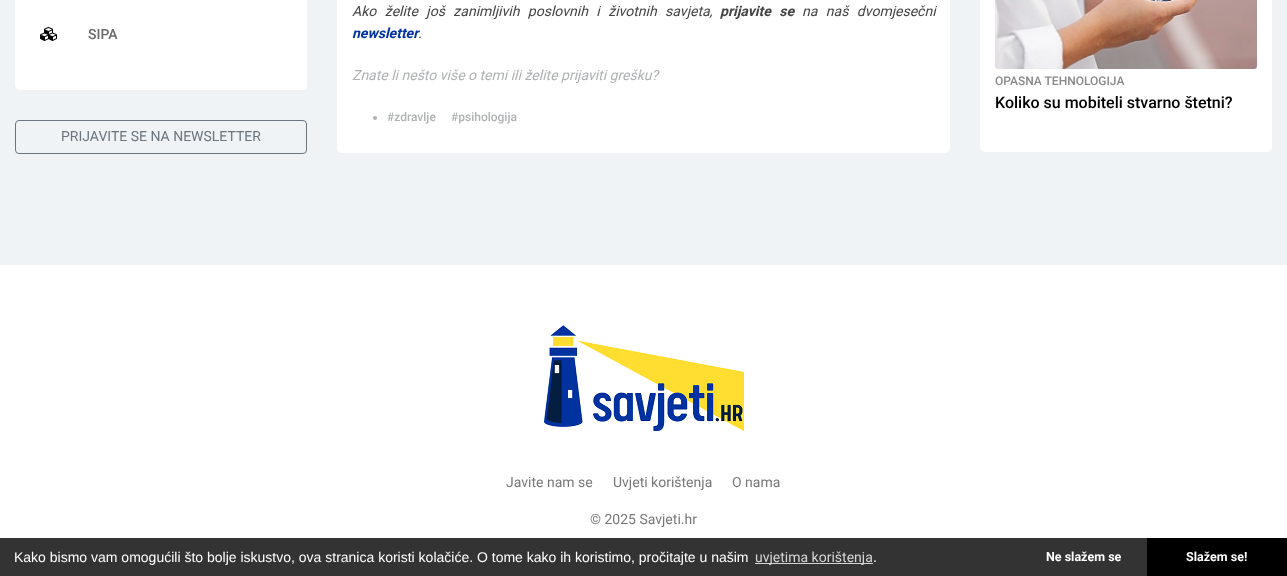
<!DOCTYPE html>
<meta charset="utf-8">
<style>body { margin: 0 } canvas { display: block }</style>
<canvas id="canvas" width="1287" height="576"></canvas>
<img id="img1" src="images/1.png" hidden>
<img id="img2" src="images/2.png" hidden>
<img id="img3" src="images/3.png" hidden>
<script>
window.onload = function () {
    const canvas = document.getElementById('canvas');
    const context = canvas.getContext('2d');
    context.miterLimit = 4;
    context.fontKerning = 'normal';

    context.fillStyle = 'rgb(240, 243, 245)';
    context.fillRect(0, 0, 1287, 576);
    context.fillStyle = 'rgb(255, 255, 255)';
    context.beginPath();
    context.roundRect(15, -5, 292, 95, 5);
    context.fill();
    context.drawImage(document.getElementById('img1'), 40, 27, 17, 14);
    context.beginPath();
    context.roundRect(15.5, 120.5, 291, 33, 3.5);
    context.strokeStyle = 'rgb(108, 117, 125)';
    context.stroke();
    context.beginPath();
    context.roundRect(337, -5, 613, 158, 5);
    context.fill();
    context.fillStyle = 'rgb(175, 177, 178)';
    context.beginPath();
    context.arc(375, 118, 2, 0, 2 * Math.PI);
    context.fill();
    context.fillStyle = 'rgb(255, 255, 255)';
    context.beginPath();
    context.roundRect(980, -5, 292, 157, 5);
    context.fill();
    context.drawImage(document.getElementById('img2'), 995, 0, 262, 69);
    context.fillRect(0, 265, 1287, 273);
    context.drawImage(document.getElementById('img3'), 544, 325, 200, 106);
    context.fillStyle = 'rgb(51, 51, 51)';
    context.fillRect(0, 538, 1147, 38);
    context.fillStyle = 'rgb(214, 214, 214)';
    context.fillRect(755, 563, 118, 1);
    context.fillStyle = 'rgb(0, 0, 0)';
    context.fillRect(1147, 538, 140, 38);
    context.font = '500 14px Roboto';
    context.fillStyle = 'rgb(105, 105, 105)';
    context.fillText('SIPA', 88, 39);
    context.font = '14px Roboto';
    context.fillStyle = 'rgb(108, 117, 125)';
    context.fillText('PRIJAVITE SE NA NEWSLETTER', 61, 141);
    context.wordSpacing = '5px';
    context.font = 'italic 14px Roboto';
    context.fillStyle = 'rgb(68, 68, 68)';
    context.fillText('Ako želite još zanimljivih poslovnih i životnih savjeta,', 352, 16);
    context.font = 'italic bold 14px Roboto';
    context.fillText('prijavite se', 720, 16);
    context.font = 'italic 14px Roboto';
    context.fillText('na naš dvomjesečni', 802, 16);
    context.wordSpacing = '0px';
    context.font = 'italic bold 14px Roboto';
    context.fillStyle = 'rgb(0, 51, 160)';
    context.fillText('newsletter', 352, 38);
    context.font = 'italic 14px Roboto';
    context.fillStyle = 'rgb(68, 68, 68)';
    context.fillText('.', 418, 38);
    context.fillStyle = 'rgb(175, 177, 178)';
    context.fillText('Znate li nešto više o temi ili želite prijaviti grešku?', 352, 80);
    context.font = '500 12px Roboto';
    context.fillText('#zdravlje', 387, 121);
    context.fillText('#psihologija', 451, 121);
    context.fillStyle = 'rgb(136, 137, 138)';
    context.fillText('OPASNA TEHNOLOGIJA', 995, 85);
    context.font = '500 16px Roboto';
    context.fillStyle = 'rgb(0, 0, 0)';
    context.fillText('Koliko su mobiteli stvarno štetni?', 995, 108);
    context.font = '14px Roboto';
    context.fillStyle = 'rgb(121, 120, 120)';
    context.fillText('Javite nam se', 506, 487);
    context.fillText('Uvjeti korištenja', 613, 487);
    context.fillText('O nama', 732, 487);
    context.fillText('© 2025 Savjeti.hr', 590, 524);
    context.font = '14px Liberation Sans';
    context.fillStyle = 'rgb(255, 255, 255)';
    context.fillText('Kako bismo vam omogućili što bolje iskustvo, ova stranica koristi kolačiće. O tome kako ih koristimo, pročitajte u našim', 14, 562);
    context.font = '14px Roboto';
    context.fillStyle = 'rgb(214, 214, 214)';
    context.fillText('uvjetima korištenja', 755, 562);
    context.font = '14px Liberation Sans';
    context.fillStyle = 'rgb(255, 255, 255)';
    context.fillText('.', 873, 562);
    context.font = 'bold 12.5px Roboto';
    context.fillText('Ne slažem se', 1046, 561);
    context.fillText('Slažem se!', 1186, 561);
};
</script>
